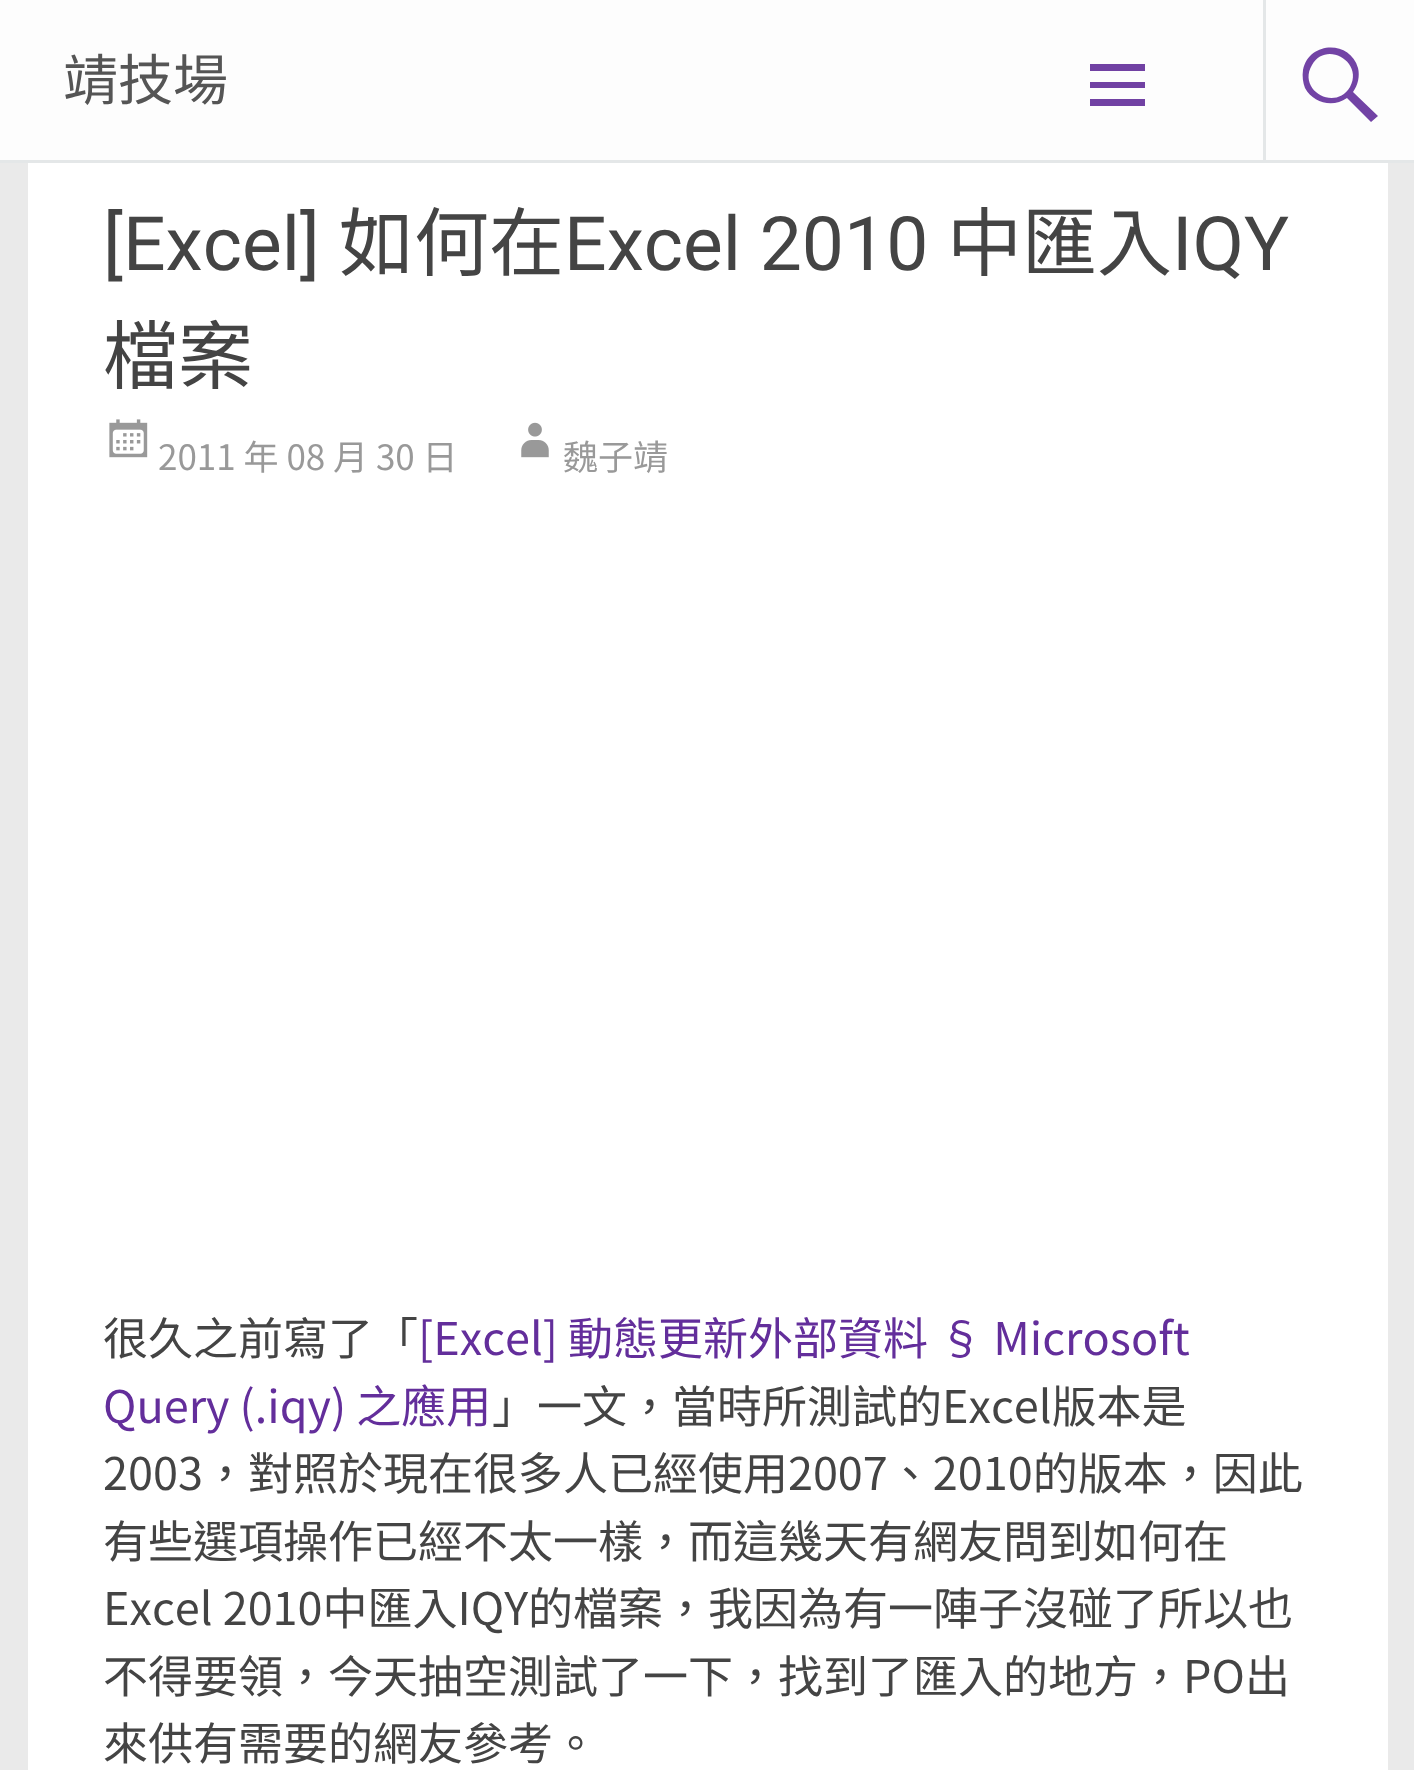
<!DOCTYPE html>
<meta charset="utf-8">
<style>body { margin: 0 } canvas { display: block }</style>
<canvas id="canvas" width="1414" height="1770"></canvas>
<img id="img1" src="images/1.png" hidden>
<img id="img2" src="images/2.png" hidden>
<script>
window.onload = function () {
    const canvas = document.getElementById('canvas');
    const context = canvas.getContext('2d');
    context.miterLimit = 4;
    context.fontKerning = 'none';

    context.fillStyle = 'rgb(234, 234, 234)';
    context.fillRect(0, 0, 1414, 1770);
    context.fillStyle = 'rgb(228, 231, 232)';
    context.fillRect(0, 160, 1414, 3);
    context.fillStyle = 'rgb(253, 253, 253)';
    context.fillRect(0, 0, 1414, 160);
    context.fillStyle = 'rgb(113, 65, 163)';
    context.beginPath();
    context.moveTo(1090, 106);
    context.lineTo(1090, 99);
    context.lineTo(1145, 99);
    context.lineTo(1145, 106);
    context.closePath();
    context.moveTo(1090, 64);
    context.lineTo(1145, 64);
    context.lineTo(1145, 71);
    context.lineTo(1090, 71);
    context.closePath();
    context.moveTo(1090, 88);
    context.lineTo(1090, 82);
    context.lineTo(1145, 82);
    context.lineTo(1145, 88);
    context.closePath();
    context.fill();
    context.fillStyle = 'rgb(228, 231, 232)';
    context.fillRect(1263, 0, 3, 160);
    context.fillStyle = 'rgb(114, 67, 165)';
    context.beginPath();
    context.moveTo(1378, 116);
    context.lineTo(1371, 122);
    context.lineTo(1347, 98);
    context.bezierCurveTo(1333, 108, 1313, 103, 1305, 88);
    context.bezierCurveTo(1303, 83, 1302, 76, 1303, 70);
    context.bezierCurveTo(1309, 41, 1350, 40, 1358, 68);
    context.bezierCurveTo(1360, 76, 1358, 85, 1353, 92);
    context.closePath();
    context.moveTo(1312, 65);
    context.bezierCurveTo(1297, 90, 1335, 112, 1350, 87);
    context.bezierCurveTo(1364, 62, 1326, 40, 1312, 65);
    context.closePath();
    context.fill();
    context.fillStyle = 'rgb(255, 255, 255)';
    context.fillRect(28, 163, 1360, 1607);
    context.drawImage(document.getElementById('img1'), 109, 419, 39, 39);
    context.drawImage(document.getElementById('img2'), 521, 422, 28, 36);
    context.font = '55px Noto Sans CJK TC';
    context.fillStyle = 'rgb(85, 85, 85)';
    context.fillText('靖技場', 63, 100);
    context.font = '75px Roboto';
    context.fillStyle = 'rgb(68, 68, 68)';
    context.fillText('[Excel]', 103, 270);
    context.font = '75px Noto Sans CJK TC';
    context.fillText('如何在', 339, 270);
    context.font = '75px Roboto';
    context.fillText('Excel 2010', 564, 270);
    context.font = '75px Noto Sans CJK TC';
    context.fillText('中匯入', 947, 270);
    context.font = '75px Roboto';
    context.fillText('IQY', 1172, 270);
    context.font = '75px Noto Sans CJK TC';
    context.fillText('檔案', 103, 383);
    context.font = '100 35px Noto Sans TC';
    context.fillStyle = 'rgb(153, 153, 153)';
    context.fillText('2011 年 08 月 30 日', 158, 470);
    context.fillText('魏子靖', 563, 470);
    context.font = '100 45px Noto Sans TC';
    context.fillStyle = 'rgb(68, 68, 68)';
    context.fillText('很久之前寫了「', 103, 1355);
    context.fillStyle = 'rgb(99, 46, 155)';
    context.fillText('[Excel] 動態更新外部資料 § Microsoft', 418, 1355);
    context.fillText('Query (.iqy) 之應用', 103, 1423);
    context.fillStyle = 'rgb(68, 68, 68)';
    context.fillText('」一文，當時所測試的Excel版本是', 492, 1423);
    context.fillText('2003，對照於現在很多人已經使用2007、2010的版本，因此', 103, 1490);
    context.fillText('有些選項操作已經不太一樣，而這幾天有網友問到如何在', 103, 1558);
    context.fillText('Excel 2010中匯入IQY的檔案，我因為有一陣子沒碰了所以也', 103, 1625);
    context.fillText('不得要領，今天抽空測試了一下，找到了匯入的地方，PO出', 103, 1693);
    context.fillText('來供有需要的網友參考。', 103, 1760);
};
</script>
